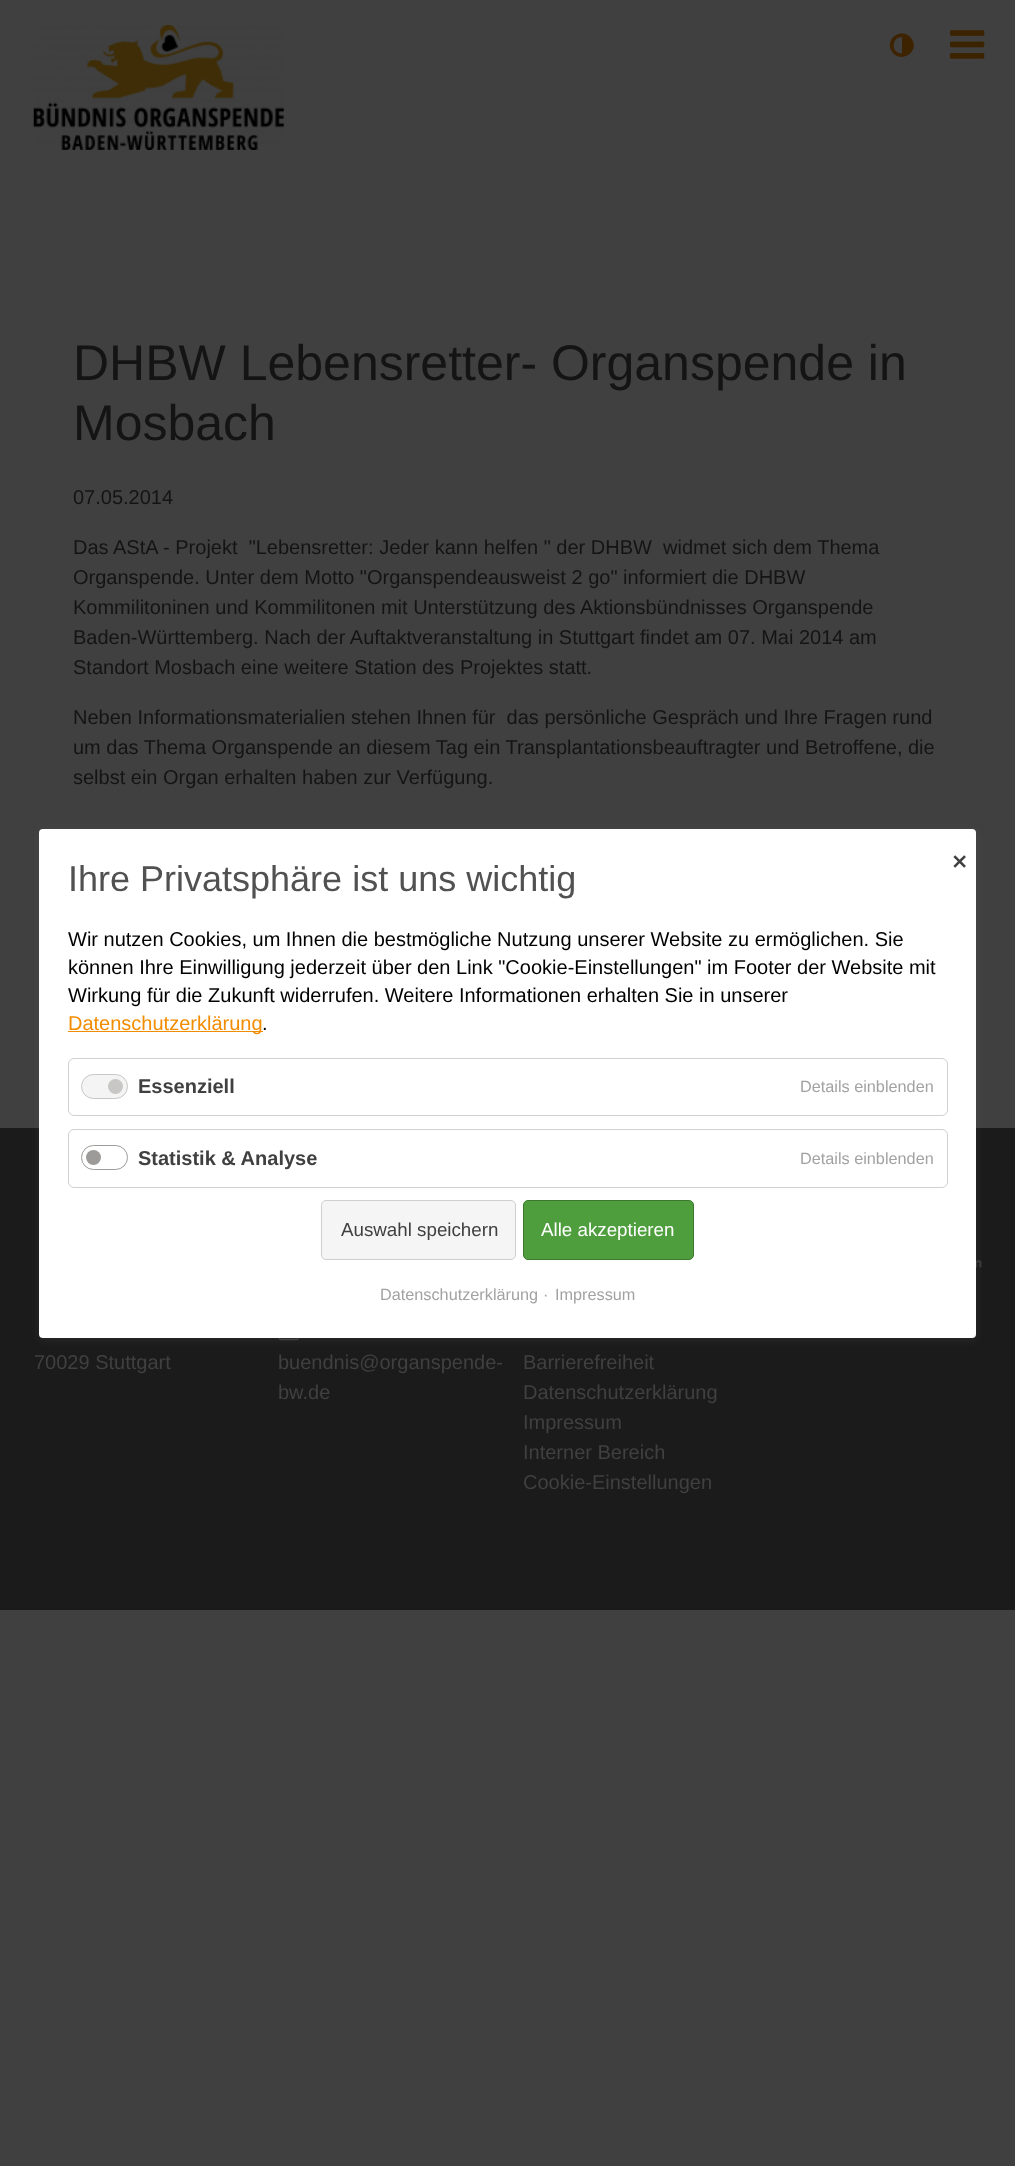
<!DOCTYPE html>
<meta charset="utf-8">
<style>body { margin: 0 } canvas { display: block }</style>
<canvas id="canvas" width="1015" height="2166"></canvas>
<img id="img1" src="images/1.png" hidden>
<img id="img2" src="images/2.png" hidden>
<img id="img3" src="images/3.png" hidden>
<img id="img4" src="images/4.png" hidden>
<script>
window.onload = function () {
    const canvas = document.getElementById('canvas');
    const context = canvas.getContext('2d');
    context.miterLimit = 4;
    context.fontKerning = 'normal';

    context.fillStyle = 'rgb(64, 64, 64)';
    context.fillRect(0, 0, 1015, 2166);
    context.drawImage(document.getElementById('img1'), 33, 25, 251, 125);
    context.fillStyle = 'rgb(61, 35, 0)';
    context.beginPath();
    context.moveTo(902, 53.5);
    context.lineTo(902, 37);
    context.bezierCurveTo(891, 37, 891, 53.5, 902, 53.5);
    context.closePath();
    context.moveTo(912, 39.5);
    context.bezierCurveTo(920, 52.5, 899.5, 64.5, 891.5, 51);
    context.bezierCurveTo(884, 37.5, 904, 26, 912, 39.5);
    context.closePath();
    context.fill();
    context.drawImage(document.getElementById('img2'), 950, 30, 35, 29);
    context.fillStyle = 'rgb(27, 27, 27)';
    context.fillRect(0, 1128, 1015, 482);
    context.drawImage(document.getElementById('img3'), 976, 1259, 6, 9);
    context.drawImage(document.getElementById('img4'), 278, 1338, 21, 3);
    context.fillStyle = 'rgba(99, 99, 99, 0.2)';
    context.filter = 'blur(5px)';
    context.beginPath();
    context.roundRect(39, 831, 937, 509, 4);
    context.fill();
    context.filter = 'none';
    context.fillStyle = 'rgb(255, 255, 255)';
    context.beginPath();
    context.roundRect(39, 829, 937, 509, 4);
    context.fill();
    context.fillStyle = 'rgb(242, 140, 0)';
    context.fillRect(68, 1031, 195, 1);
    context.beginPath();
    context.roundRect(68.5, 1058.5, 879, 57, 5.5);
    context.strokeStyle = 'rgb(208, 208, 208)';
    context.stroke();
    context.fillStyle = 'rgb(244, 244, 244)';
    context.beginPath();
    context.roundRect(81.5, 1074.5, 46, 24, 12);
    context.fill();
    context.strokeStyle = 'rgb(200, 199, 197)';
    context.stroke();
    context.fillStyle = 'rgb(200, 199, 197)';
    context.beginPath();
    context.arc(115.5, 1086.5, 7.5, 0, 2 * Math.PI);
    context.fill();
    context.beginPath();
    context.roundRect(68.5, 1129.5, 879, 58, 5.5);
    context.strokeStyle = 'rgb(208, 208, 208)';
    context.stroke();
    context.beginPath();
    context.roundRect(81.5, 1145.5, 46, 24, 12);
    context.strokeStyle = 'rgb(156, 155, 153)';
    context.stroke();
    context.fillStyle = 'rgb(156, 155, 153)';
    context.beginPath();
    context.arc(93.5, 1157.5, 7.5, 0, 2 * Math.PI);
    context.fill();
    context.fillStyle = 'rgb(245, 245, 245)';
    context.beginPath();
    context.roundRect(321.5, 1200.5, 194, 59, 4.5);
    context.fill();
    context.strokeStyle = 'rgb(207, 207, 207)';
    context.stroke();
    context.fillStyle = 'rgb(78, 158, 62)';
    context.beginPath();
    context.roundRect(523.5, 1200.5, 170, 59, 4.5);
    context.fill();
    context.strokeStyle = 'rgb(62, 120, 48)';
    context.stroke();
    context.font = '50px Liberation Sans';
    context.fillStyle = 'rgb(20, 20, 20)';
    context.fillText('DHBW Lebensretter- Organspende in', 73, 380);
    context.fillText('Mosbach', 73, 440);
    context.font = '20px Liberation Sans';
    context.fillText('07.05.2014', 73, 504);
    context.fillText('Das AStA - Projekt  "Lebensretter: Jeder kann helfen " der DHBW  widmet sich dem Thema', 73, 554);
    context.fillText('Organspende. Unter dem Motto "Organspendeausweist 2 go" informiert die DHBW', 73, 584);
    context.fillText('Kommilitoninen und Kommilitonen mit Unterstützung des Aktionsbündnisses Organspende', 73, 614);
    context.fillText('Baden-Württemberg. Nach der Auftaktveranstaltung in Stuttgart findet am 07. Mai 2014 am', 73, 644);
    context.fillText('Standort Mosbach eine weitere Station des Projektes statt.', 73, 674);
    context.fillText('Neben Informationsmaterialien stehen Ihnen für  das persönliche Gespräch und Ihre Fragen rund', 73, 724);
    context.fillText('um das Thema Organspende an diesem Tag ein Transplantationsbeauftragter und Betroffene, die', 73, 754);
    context.fillText('selbst ein Organ erhalten haben zur Verfügung.', 73, 784);
    context.fillStyle = 'rgb(64, 64, 64)';
    context.fillText('70029 Stuttgart', 34, 1369);
    context.fillText('buendnis@organspende-', 278, 1369);
    context.fillText('bw.de', 278, 1399);
    context.fillText('Barrierefreiheit', 523, 1369);
    context.fillText('Datenschutzerklärung', 523, 1399);
    context.fillText('Impressum', 523, 1429);
    context.fillText('Interner Bereich', 523, 1459);
    context.fillText('Cookie-Einstellungen', 523, 1489);
    context.font = 'bold 20px DejaVu Sans';
    context.fillText('✕', 951, 869);
    context.font = '36px Liberation Sans';
    context.fillStyle = 'rgb(81, 81, 81)';
    context.fillText('Ihre Privatsphäre ist uns wichtig', 68, 891);
    context.font = '20px Liberation Sans';
    context.fillStyle = 'rgb(0, 0, 0)';
    context.fillText('Wir nutzen Cookies, um Ihnen die bestmögliche Nutzung unserer Website zu ermöglichen. Sie', 68, 946);
    context.fillText('können Ihre Einwilligung jederzeit über den Link "Cookie-Einstellungen" im Footer der Website mit', 68, 974);
    context.fillText('Wirkung für die Zukunft widerrufen. Weitere Informationen erhalten Sie in unserer', 68, 1002);
    context.fillStyle = 'rgb(242, 140, 0)';
    context.fillText('Datenschutzerklärung', 68, 1030);
    context.fillStyle = 'rgb(0, 0, 0)';
    context.fillText('.', 262, 1030);
    context.font = 'bold 20px Liberation Sans';
    context.fillStyle = 'rgb(64, 64, 64)';
    context.fillText('Essenziell', 138, 1093);
    context.font = '16.25px Liberation Sans';
    context.fillStyle = 'rgb(162, 162, 162)';
    context.fillText('Details einblenden', 800, 1092);
    context.font = 'bold 20px Liberation Sans';
    context.fillStyle = 'rgb(64, 64, 64)';
    context.fillText('Statistik & Analyse', 138, 1165);
    context.font = '16.25px Liberation Sans';
    context.fillStyle = 'rgb(162, 162, 162)';
    context.fillText('Details einblenden', 800, 1164);
    context.font = '18.75px Liberation Sans';
    context.fillStyle = 'rgb(64, 64, 64)';
    context.fillText('Auswahl speichern', 341, 1236);
    context.fillStyle = 'rgb(255, 255, 255)';
    context.fillText('Alle akzeptieren', 541, 1236);
    context.font = '16.25px Liberation Sans';
    context.fillStyle = 'rgb(162, 162, 162)';
    context.fillText('Datenschutzerklärung', 380, 1300);
    context.fillText('·', 543, 1300);
    context.fillText('Impressum', 555, 1300);
};
</script>
